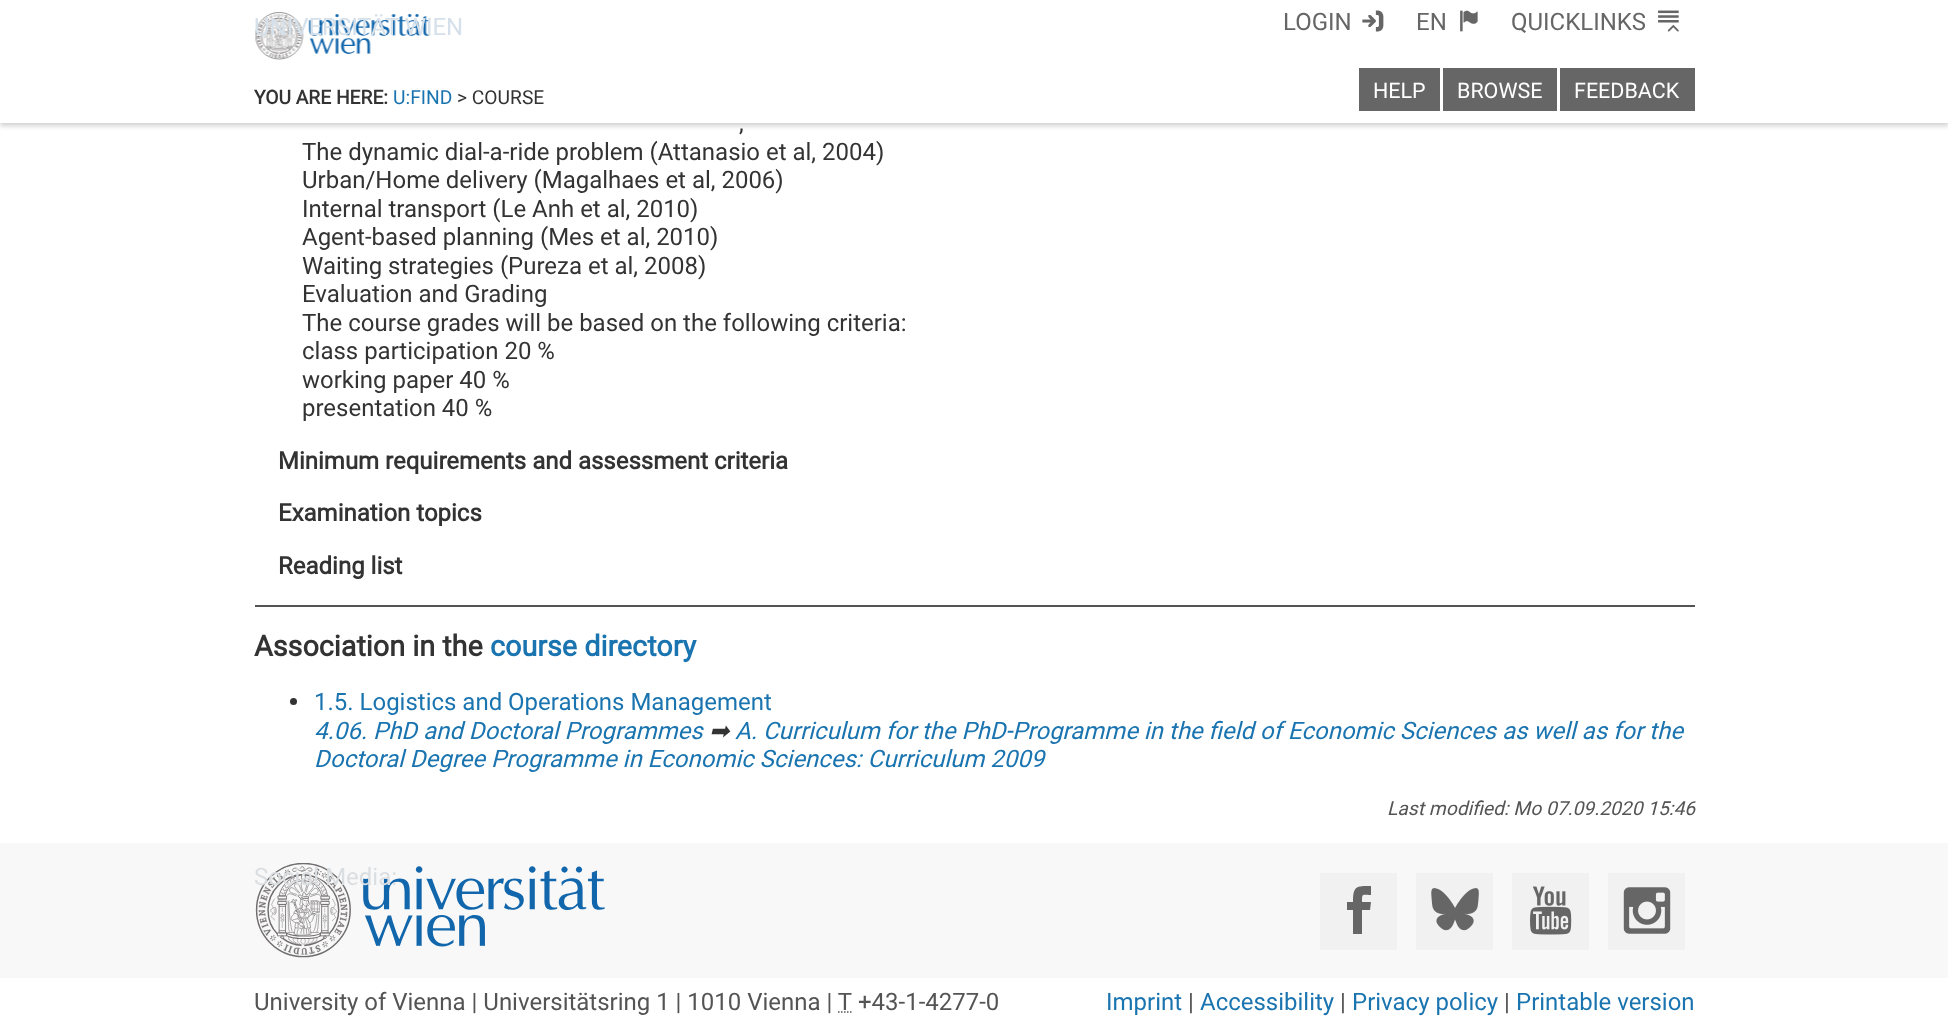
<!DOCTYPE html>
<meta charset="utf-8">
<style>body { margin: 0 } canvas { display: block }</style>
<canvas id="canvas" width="1948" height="1034"></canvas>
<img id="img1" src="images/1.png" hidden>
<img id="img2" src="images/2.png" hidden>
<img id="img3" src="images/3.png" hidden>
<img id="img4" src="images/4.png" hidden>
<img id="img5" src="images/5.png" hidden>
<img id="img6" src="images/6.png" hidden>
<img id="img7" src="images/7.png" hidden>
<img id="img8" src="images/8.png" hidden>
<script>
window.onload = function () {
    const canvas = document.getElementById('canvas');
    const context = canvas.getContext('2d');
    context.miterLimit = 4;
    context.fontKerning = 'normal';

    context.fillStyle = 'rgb(255, 255, 255)';
    context.fillRect(0, 0, 1948, 1034);
    context.fillStyle = 'rgba(0, 0, 0, 0.18)';
    context.filter = 'blur(2.5px)';
    context.beginPath();
    context.rect(0, 3, 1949, 123);
    context.fill();
    context.filter = 'none';
    context.fillStyle = 'rgb(255, 255, 255)';
    context.fillRect(0, 0, 1948, 123);
    context.drawImage(document.getElementById('img1'), 255, 12, 176, 48);
    context.drawImage(document.getElementById('img2'), 1362, 10, 22, 22);
    context.drawImage(document.getElementById('img3'), 1460, 10, 18, 22);
    context.drawImage(document.getElementById('img4'), 1658, 10, 21, 22);
    context.fillStyle = 'rgb(102, 102, 102)';
    context.fillRect(1359, 68, 81, 43);
    context.fillRect(1443, 68, 114, 43);
    context.fillRect(1560, 68, 135, 43);
    context.fillStyle = 'rgb(84, 84, 84)';
    context.fillRect(255, 605, 1440, 2);
    context.fillStyle = 'rgb(51, 51, 51)';
    context.beginPath();
    context.arc(293.5, 701.5, 3.5, 0, 2 * Math.PI);
    context.fill();
    context.fillStyle = 'rgb(248, 248, 248)';
    context.fillRect(0, 843, 1948, 135);
    context.drawImage(document.getElementById('img5'), 255, 863, 350, 95);
    context.fillStyle = 'rgb(241, 241, 241)';
    context.fillRect(1320, 873, 77, 77);
    context.fillStyle = 'rgb(102, 102, 102)';
    context.beginPath();
    context.moveTo(1362, 902);
    context.bezierCurveTo(1362, 893, 1362, 895, 1371, 895);
    context.lineTo(1371, 886);
    context.bezierCurveTo(1356, 886, 1353, 886, 1353, 902);
    context.lineTo(1347, 902);
    context.lineTo(1347, 910);
    context.lineTo(1353, 910);
    context.lineTo(1353, 934);
    context.lineTo(1362, 934);
    context.lineTo(1362, 910);
    context.lineTo(1370, 910);
    context.lineTo(1371, 902);
    context.closePath();
    context.fill();
    context.fillStyle = 'rgb(241, 241, 241)';
    context.fillRect(1416, 873, 77, 77);
    context.drawImage(document.getElementById('img6'), 1431, 888, 48, 43);
    context.fillRect(1512, 873, 77, 77);
    context.drawImage(document.getElementById('img7'), 1530, 886, 42, 49);
    context.fillRect(1608, 873, 77, 77);
    context.drawImage(document.getElementById('img8'), 1623, 887, 48, 47);
    context.beginPath();
    context.moveTo(838, 1012);
    context.lineTo(852, 1012);
    context.strokeStyle = 'rgb(84, 84, 84)';
    context.lineWidth = 1.5;
    context.setLineDash([1.5, 1.5]);
    context.stroke();
    context.font = '24px Roboto';
    context.fillStyle = 'rgb(213, 224, 234)';
    context.fillText('UNIVERSITÄT WIEN', 254, 35);
    context.fillStyle = 'rgb(102, 102, 102)';
    context.fillText('LOGIN', 1283, 30);
    context.fillText('EN', 1416, 30);
    context.fillText('QUICKLINKS', 1511, 30);
    context.font = '21.5px Roboto';
    context.fillStyle = 'rgb(255, 255, 255)';
    context.fillText('HELP', 1373, 98);
    context.fillText('BROWSE', 1457, 98);
    context.fillText('FEEDBACK', 1574, 98);
    context.font = 'bold 19.25px Roboto';
    context.fillStyle = 'rgb(51, 51, 51)';
    context.fillText('YOU ARE HERE:', 254, 104);
    context.font = '19.25px Roboto';
    context.fillStyle = 'rgb(26, 116, 176)';
    context.fillText('U:FIND', 393, 104);
    context.fillStyle = 'rgb(51, 51, 51)';
    context.fillText('> COURSE', 457, 104);
    context.font = '24px Roboto';
    context.fillText(',', 739, 131);
    context.fillText('The dynamic dial-a-ride problem (Attanasio et al, 2004)', 302, 160);
    context.fillText('Urban/Home delivery (Magalhaes et al, 2006)', 302, 188);
    context.fillText('Internal transport (Le Anh et al, 2010)', 302, 217);
    context.fillText('Agent-based planning (Mes et al, 2010)', 302, 245);
    context.fillText('Waiting strategies (Pureza et al, 2008)', 302, 274);
    context.fillText('Evaluation and Grading', 302, 302);
    context.fillText('The course grades will be based on the following criteria:', 302, 331);
    context.fillText('class participation 20 %', 302, 359);
    context.fillText('working paper 40 %', 302, 388);
    context.fillText('presentation 40 %', 302, 416);
    context.font = 'bold 24px Roboto';
    context.fillText('Minimum requirements and assessment criteria', 278, 469);
    context.fillText('Examination topics', 278, 521);
    context.fillText('Reading list', 278, 574);
    context.font = 'bold 28.75px Roboto';
    context.fillText('Association in the', 254, 656);
    context.fillStyle = 'rgb(26, 116, 176)';
    context.fillText('course directory', 490, 656);
    context.font = '24px Roboto';
    context.fillText('1.5. Logistics and Operations Management', 314, 710);
    context.font = 'italic 24px Roboto';
    context.fillText('4.06. PhD and Doctoral Programmes', 314, 739);
    context.font = 'italic 24px DejaVu Sans';
    context.fillStyle = 'rgb(51, 51, 51)';
    context.fillText('➡', 709, 739);
    context.font = 'italic 24px Roboto';
    context.fillStyle = 'rgb(26, 116, 176)';
    context.fillText('A. Curriculum for the PhD-Programme in the field of Economic Sciences as well as for the', 735, 739);
    context.fillText('Doctoral Degree Programme in Economic Sciences: Curriculum 2009', 314, 767);
    context.font = 'italic 19.25px Roboto';
    context.fillStyle = 'rgb(84, 84, 84)';
    context.fillText('Last modified: Mo 07.09.2020 15:46', 1387, 815);
    context.font = '24px Roboto';
    context.fillStyle = 'rgb(219, 222, 225)';
    context.fillText('Social Media:', 254, 885);
    context.fillStyle = 'rgb(84, 84, 84)';
    context.fillText('University of Vienna | Universitätsring 1 | 1010 Vienna | T', 254, 1010);
    context.fillText('+43-1-4277-0', 858, 1010);
    context.fillStyle = 'rgb(26, 116, 176)';
    context.fillText('Imprint', 1106, 1010);
    context.fillStyle = 'rgb(84, 84, 84)';
    context.fillText('|', 1188, 1010);
    context.fillStyle = 'rgb(26, 116, 176)';
    context.fillText('Accessibility', 1200, 1010);
    context.fillStyle = 'rgb(84, 84, 84)';
    context.fillText('|', 1340, 1010);
    context.fillStyle = 'rgb(26, 116, 176)';
    context.fillText('Privacy policy', 1352, 1010);
    context.fillStyle = 'rgb(84, 84, 84)';
    context.fillText('|', 1504, 1010);
    context.fillStyle = 'rgb(26, 116, 176)';
    context.fillText('Printable version', 1516, 1010);
};
</script>
